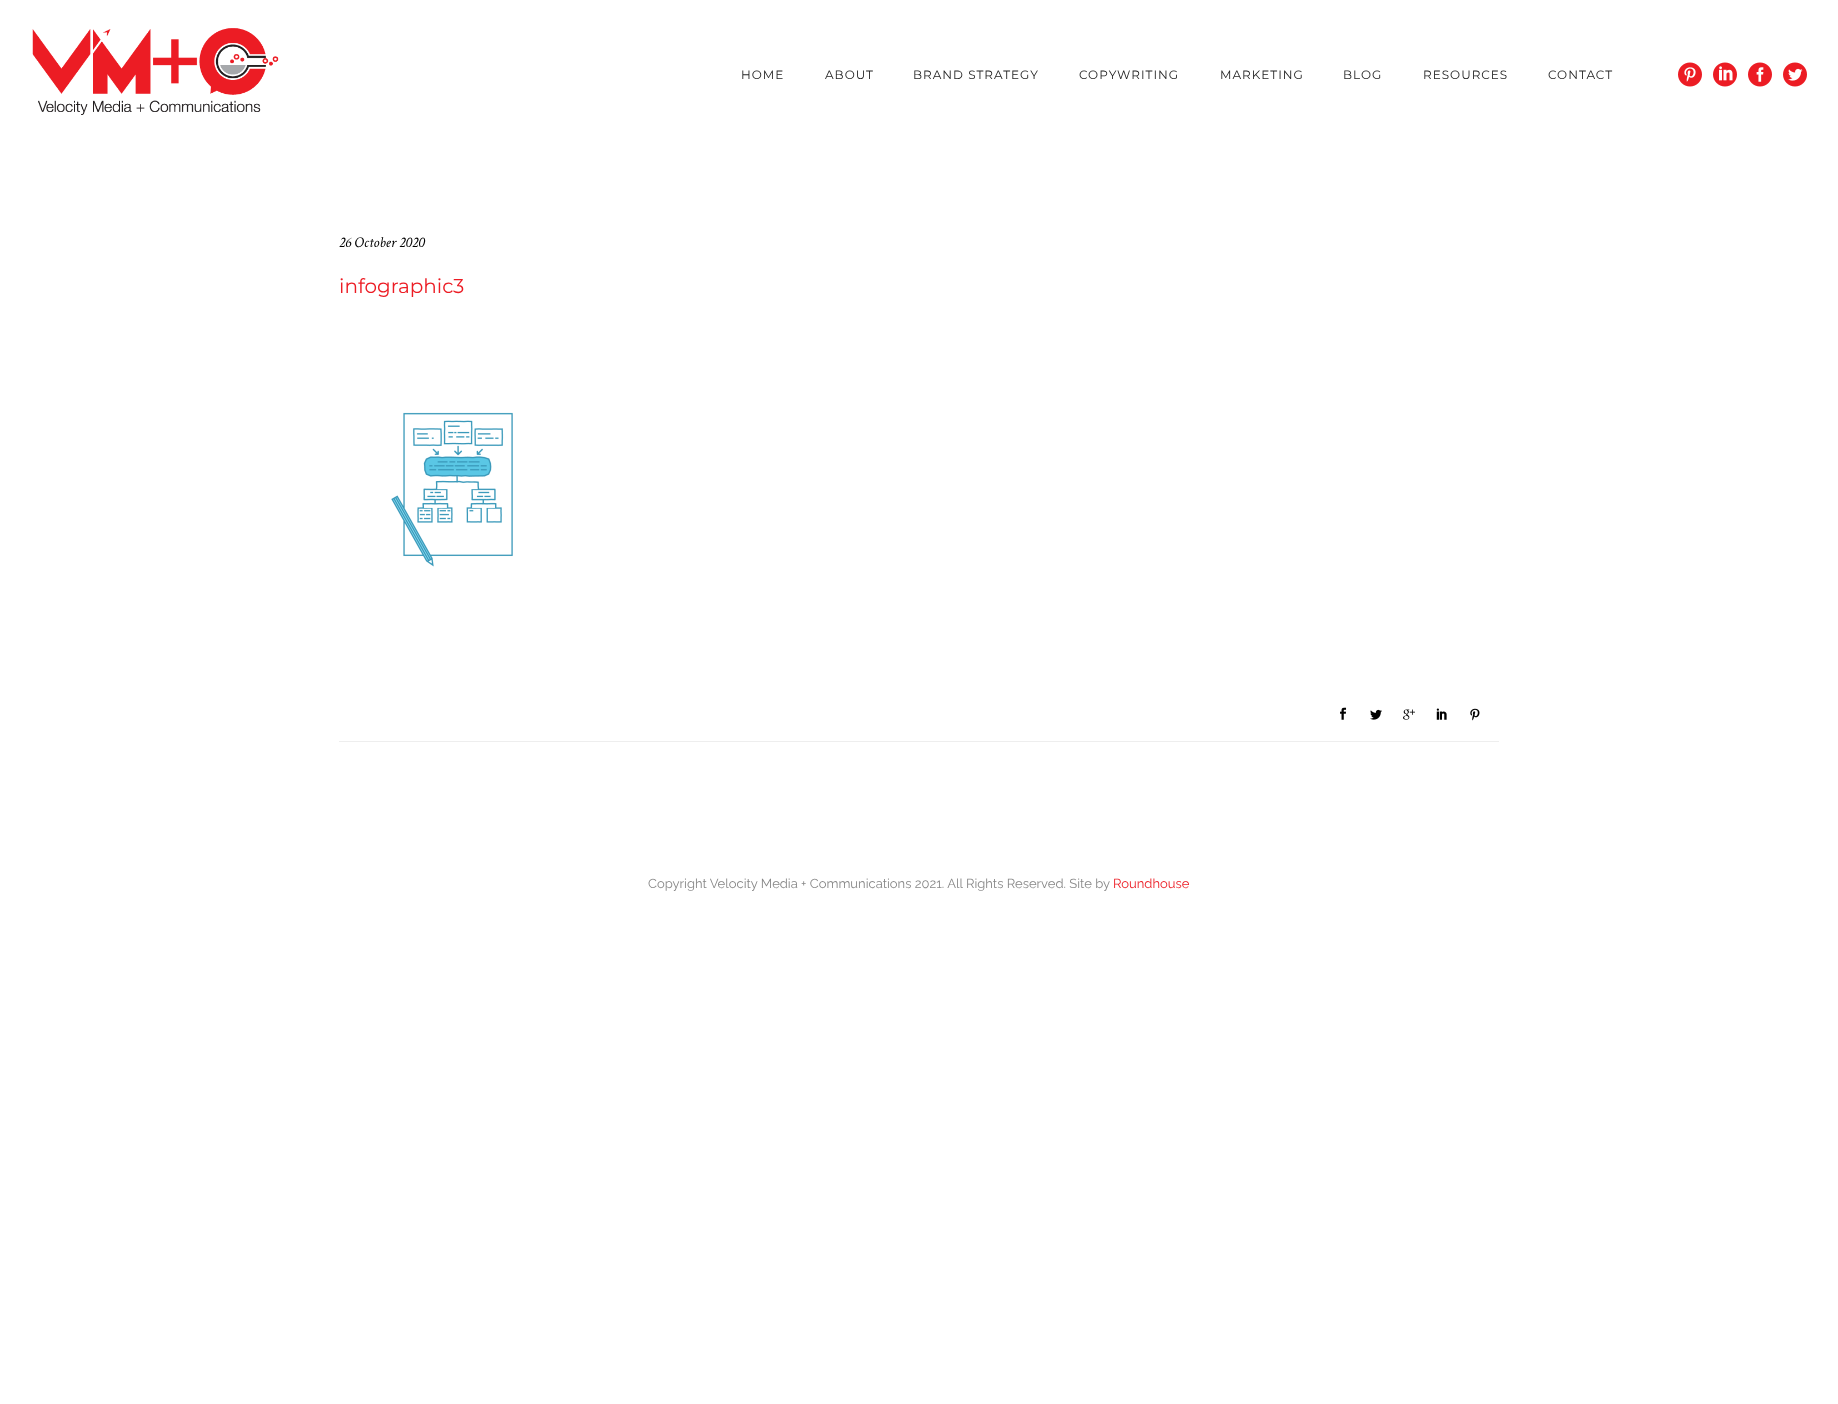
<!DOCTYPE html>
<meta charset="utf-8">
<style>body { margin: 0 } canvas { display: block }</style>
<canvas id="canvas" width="1838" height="1404"></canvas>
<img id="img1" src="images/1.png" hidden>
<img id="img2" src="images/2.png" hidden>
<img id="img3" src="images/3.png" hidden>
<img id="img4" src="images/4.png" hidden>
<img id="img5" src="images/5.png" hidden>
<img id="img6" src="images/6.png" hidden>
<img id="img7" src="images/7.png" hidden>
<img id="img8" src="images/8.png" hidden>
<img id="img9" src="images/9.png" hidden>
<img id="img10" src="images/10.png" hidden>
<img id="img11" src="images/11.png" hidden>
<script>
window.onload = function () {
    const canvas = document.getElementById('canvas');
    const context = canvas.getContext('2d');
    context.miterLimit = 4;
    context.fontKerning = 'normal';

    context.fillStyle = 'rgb(255, 255, 255)';
    context.fillRect(0, 0, 1838, 1404);
    context.drawImage(document.getElementById('img1'), 32, 28, 247, 87);
    context.drawImage(document.getElementById('img2'), 1678, 62, 24, 25);
    context.drawImage(document.getElementById('img3'), 1713, 62, 24, 25);
    context.drawImage(document.getElementById('img4'), 1748, 62, 24, 25);
    context.drawImage(document.getElementById('img5'), 1783, 62, 24, 25);
    context.drawImage(document.getElementById('img6'), 391, 412, 122, 155);
    context.fillStyle = 'rgb(238, 238, 238)';
    context.fillRect(339, 741, 1160, 1);
    context.drawImage(document.getElementById('img7'), 1340, 707, 7, 13);
    context.drawImage(document.getElementById('img8'), 1370, 709, 12, 11);
    context.drawImage(document.getElementById('img9'), 1403, 709, 12, 11);
    context.drawImage(document.getElementById('img10'), 1436, 708, 11, 12);
    context.drawImage(document.getElementById('img11'), 1470, 708, 10, 13);
    context.letterSpacing = '1px';
    context.font = '12px Montserrat';
    context.fillStyle = 'rgb(35, 35, 35)';
    context.fillText('HOME', 741, 79);
    context.fillText('ABOUT', 825, 79);
    context.fillText('BRAND STRATEGY', 913, 79);
    context.fillText('COPYWRITING', 1079, 79);
    context.fillText('MARKETING', 1220, 79);
    context.fillText('BLOG', 1343, 79);
    context.fillText('RESOURCES', 1423, 79);
    context.fillText('CONTACT', 1548, 79);
    context.letterSpacing = '0px';
    context.font = 'italic 15px Crimson Text';
    context.fillStyle = 'rgb(0, 0, 0)';
    context.fillText('26 October 2020', 339, 247);
    context.font = '20px Montserrat';
    context.fillStyle = 'rgb(236, 28, 36)';
    context.fillText('infographic3', 339, 293);
    context.font = '13px Raleway';
    context.fillStyle = 'rgb(136, 136, 136)';
    context.fillText('Copyright Velocity Media + Communications 2021. All Rights Reserved. Site by', 648, 888);
    context.fillStyle = 'rgb(236, 28, 36)';
    context.fillText('Roundhouse', 1113, 888);
};
</script>
